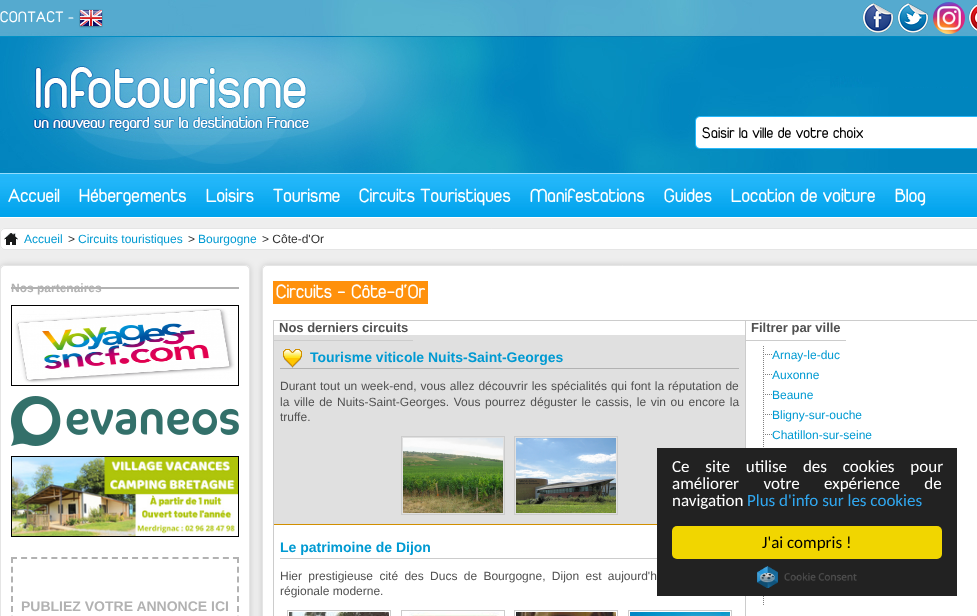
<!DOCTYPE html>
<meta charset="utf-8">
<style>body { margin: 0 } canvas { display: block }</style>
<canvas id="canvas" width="977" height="616"></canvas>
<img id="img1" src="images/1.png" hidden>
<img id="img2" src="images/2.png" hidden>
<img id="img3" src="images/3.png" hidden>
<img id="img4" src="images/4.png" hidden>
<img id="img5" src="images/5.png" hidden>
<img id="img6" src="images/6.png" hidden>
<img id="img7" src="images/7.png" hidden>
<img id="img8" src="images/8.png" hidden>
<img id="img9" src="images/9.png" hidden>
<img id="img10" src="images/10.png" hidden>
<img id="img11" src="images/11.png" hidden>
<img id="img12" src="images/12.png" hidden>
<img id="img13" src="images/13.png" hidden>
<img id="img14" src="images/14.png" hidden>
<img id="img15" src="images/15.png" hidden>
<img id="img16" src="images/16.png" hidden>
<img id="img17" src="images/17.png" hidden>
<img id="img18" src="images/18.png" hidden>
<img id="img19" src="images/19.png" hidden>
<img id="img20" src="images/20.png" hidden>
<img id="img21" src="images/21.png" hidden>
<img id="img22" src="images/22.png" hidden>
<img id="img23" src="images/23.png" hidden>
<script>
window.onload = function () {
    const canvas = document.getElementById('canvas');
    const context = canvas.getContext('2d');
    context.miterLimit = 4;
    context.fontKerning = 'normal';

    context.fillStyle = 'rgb(238, 238, 238)';
    context.fillRect(0, 0, 977, 616);
    context.drawImage(document.getElementById('img1'), 0, 173, 977, 45);
    context.drawImage(document.getElementById('img2'), 0, 0, 977, 173);
    context.drawImage(document.getElementById('img3'), 79, 9, 24, 19);
    context.drawImage(document.getElementById('img4'), 862, 3, 32, 30);
    context.drawImage(document.getElementById('img5'), 897, 3, 32, 30);
    context.drawImage(document.getElementById('img6'), 933, 2, 32, 32);
    context.drawImage(document.getElementById('img7'), 968, 4, 9, 28);
    context.drawImage(document.getElementById('img8'), 86, 88, 133, 50);
    context.fillStyle = 'rgb(255, 255, 255)';
    context.fillRect(700, 117, 3, 29);
    context.beginPath();
    context.roundRect(0, 228, 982, 22, 5);
    context.fill();
    context.beginPath();
    context.roundRect(0.5, 228.5, 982, 21, 4.5);
    context.strokeStyle = 'rgba(189, 189, 189, 0.39)';
    context.stroke();
    context.drawImage(document.getElementById('img9'), 4, 233, 14, 12);
    context.fillStyle = 'rgba(0, 0, 0, 0.16)';
    context.filter = 'blur(3px)';
    context.beginPath();
    context.roundRect(0, 265, 250, 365, 5);
    context.fill();
    context.filter = 'none';
    context.fillStyle = 'rgb(255, 255, 255)';
    context.beginPath();
    context.roundRect(0, 265, 250, 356, 5);
    context.fill();
    context.beginPath();
    context.roundRect(0.5, 265.5, 249, 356, 4.5);
    context.stroke();
    context.fillStyle = 'rgb(178, 178, 178)';
    context.fillRect(11, 287, 228, 2);
    context.strokeStyle = 'rgb(0, 0, 0)';
    context.strokeRect(11.5, 305.5, 227, 80);
    context.drawImage(document.getElementById('img10'), 15, 308, 220, 75);
    context.drawImage(document.getElementById('img11'), 11, 396, 228, 50);
    context.strokeRect(11.5, 456.5, 227, 80);
    context.drawImage(document.getElementById('img12'), 12, 457, 226, 79);
    context.beginPath();
    context.moveTo(11, 558);
    context.lineTo(239, 558);
    context.strokeStyle = 'rgb(178, 178, 178)';
    context.lineWidth = 2;
    context.setLineDash([6, 4.09]);
    context.stroke();
    context.beginPath();
    context.moveTo(238, 557);
    context.lineTo(238, 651);
    context.setLineDash([6, 3.78]);
    context.stroke();
    context.beginPath();
    context.moveTo(12, 557);
    context.lineTo(12, 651);
    context.stroke();
    context.fillStyle = 'rgba(0, 0, 0, 0.16)';
    context.filter = 'blur(3px)';
    context.beginPath();
    context.roundRect(262, 265, 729, 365, 5);
    context.fill();
    context.filter = 'none';
    context.fillStyle = 'rgb(255, 255, 255)';
    context.beginPath();
    context.roundRect(262, 265, 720, 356, 5);
    context.fill();
    context.beginPath();
    context.roundRect(262.5, 265.5, 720, 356, 4.5);
    context.strokeStyle = 'rgba(189, 189, 189, 0.39)';
    context.lineWidth = 1;
    context.setLineDash([]);
    context.stroke();
    context.fillStyle = 'rgb(255, 145, 12)';
    context.fillRect(273, 281, 155, 23);
    context.strokeStyle = 'rgb(204, 204, 204)';
    context.strokeRect(273.5, 320.5, 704, 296);
    context.fillStyle = 'rgb(204, 204, 204)';
    context.fillRect(745, 321, 1, 295);
    context.fillStyle = 'rgb(224, 224, 224)';
    context.fillRect(274, 335, 471, 189);
    context.fillStyle = 'rgb(204, 204, 204)';
    context.fillRect(274, 340, 139, 1);
    context.fillStyle = 'rgb(209, 143, 0)';
    context.fillRect(274, 524, 383, 1);
    context.drawImage(document.getElementById('img13'), 283, 349, 19, 19);
    context.fillStyle = 'rgb(178, 178, 178)';
    context.fillRect(280, 368, 459, 1);
    context.strokeRect(401.5, 436.5, 103, 78);
    context.strokeRect(514.5, 436.5, 103, 78);
    context.drawImage(document.getElementById('img14'), 403, 438, 100, 75);
    context.drawImage(document.getElementById('img15'), 516, 438, 100, 75);
    context.fillStyle = 'rgb(204, 204, 204)';
    context.fillRect(280, 558, 377, 1);
    context.strokeRect(287.5, 610.5, 103, 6);
    context.strokeRect(401.5, 610.5, 103, 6);
    context.strokeRect(514.5, 610.5, 103, 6);
    context.strokeRect(628.5, 610.5, 103, 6);
    context.drawImage(document.getElementById('img16'), 289, 612, 100, 4);
    context.drawImage(document.getElementById('img17'), 409, 612, 91, 4);
    context.drawImage(document.getElementById('img18'), 516, 612, 100, 4);
    context.drawImage(document.getElementById('img19'), 630, 612, 100, 4);
    context.fillRect(746, 340, 100, 1);
    context.drawImage(document.getElementById('img20'), 763, 346, 9, 19);
    context.drawImage(document.getElementById('img20'), 763, 366, 9, 19);
    context.drawImage(document.getElementById('img20'), 763, 386, 9, 19);
    context.drawImage(document.getElementById('img20'), 763, 406, 9, 19);
    context.drawImage(document.getElementById('img20'), 763, 426, 9, 19);
    context.drawImage(document.getElementById('img21'), 763, 446, 1, 1);
    context.drawImage(document.getElementById('img22'), 763, 596, 1, 9);
    context.fillStyle = 'rgb(34, 34, 34)';
    context.fillRect(657, 448, 300, 148);
    context.fillStyle = 'rgb(241, 214, 0)';
    context.beginPath();
    context.roundRect(672, 526, 270, 33, 5);
    context.fill();
    context.drawImage(document.getElementById('img23'), 757, 566, 100, 22);
    context.letterSpacing = '0.5px';
    context.font = '16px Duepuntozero';
    context.fillStyle = 'rgb(255, 255, 255)';
    context.fillText('CONTACT', 0, 22);
    context.font = '14px Duepuntozero';
    context.fillText('-', 68, 22);
    context.letterSpacing = '0px';
    context.font = '16px Duepuntozero';
    context.fillStyle = 'rgb(0, 0, 0)';
    context.fillText('Saisir la ville de votre choix', 702, 138);
    context.font = '20px Duepuntozero';
    context.fillStyle = 'rgb(255, 255, 255)';
    context.fillText('Accueil', 8, 202);
    context.fillText('Hébergements', 79, 202);
    context.fillText('Loisirs', 206, 202);
    context.fillText('Tourisme', 273, 202);
    context.fillText('Circuits Touristiques', 359, 202);
    context.fillText('Manifestations', 530, 202);
    context.fillText('Guides', 664, 202);
    context.fillText('Location de voiture', 731, 202);
    context.fillText('Blog', 895, 202);
    context.font = '12px Liberation Sans';
    context.fillStyle = 'rgb(0, 154, 210)';
    context.fillText('Accueil', 24, 243);
    context.fillStyle = 'rgb(48, 48, 48)';
    context.fillText('>', 68, 243);
    context.fillStyle = 'rgb(0, 154, 210)';
    context.fillText('Circuits touristiques', 78, 243);
    context.fillStyle = 'rgb(48, 48, 48)';
    context.fillText('>', 188, 243);
    context.fillStyle = 'rgb(0, 154, 210)';
    context.fillText('Bourgogne', 198, 243);
    context.fillStyle = 'rgb(48, 48, 48)';
    context.fillText('> Côte-d\'Or', 262, 243);
    context.font = 'bold 12px Liberation Sans';
    context.fillStyle = 'rgb(178, 178, 178)';
    context.fillText('Nos partenaires', 11, 292);
    context.font = 'bold 14px Liberation Sans';
    context.fillText('PUBLIEZ VOTRE ANNONCE ICI', 21, 611);
    context.font = '20px Duepuntozero';
    context.fillStyle = 'rgb(255, 255, 255)';
    context.fillText('Circuits - Côte-d\'Or', 276, 298);
    context.font = 'bold 13px Liberation Sans';
    context.fillStyle = 'rgb(80, 80, 80)';
    context.fillText('Nos derniers circuits', 279, 332);
    context.font = 'bold 14px Liberation Sans';
    context.fillStyle = 'rgb(0, 154, 210)';
    context.fillText('Tourisme viticole Nuits-Saint-Georges', 310, 362);
    context.wordSpacing = '0.6px';
    context.font = '12px Liberation Sans';
    context.fillStyle = 'rgb(80, 80, 80)';
    context.fillText('Durant tout un week-end, vous allez découvrir les spécialités qui font la réputation de', 280, 390);
    context.wordSpacing = '1.25px';
    context.fillText('la ville de Nuits-Saint-Georges. Vous pourrez déguster le cassis, le vin ou encore la', 280, 406);
    context.wordSpacing = '0px';
    context.fillText('truffe.', 280, 421);
    context.font = 'bold 14px Liberation Sans';
    context.fillStyle = 'rgb(0, 154, 210)';
    context.fillText('Le patrimoine de Dijon', 280, 552);
    context.wordSpacing = '3px';
    context.font = '12px Liberation Sans';
    context.fillStyle = 'rgb(80, 80, 80)';
    context.fillText('Hier prestigieuse cité des Ducs de Bourgogne, Dijon est aujourd\'h', 280, 580);
    context.wordSpacing = '0px';
    context.fillText('régionale moderne.', 280, 595);
    context.font = 'bold 13px Liberation Sans';
    context.fillText('Filtrer par ville', 751, 332);
    context.font = '12px Liberation Sans';
    context.fillStyle = 'rgb(0, 154, 210)';
    context.fillText('Arnay-le-duc', 772, 359);
    context.fillText('Auxonne', 772, 379);
    context.fillText('Beaune', 772, 399);
    context.fillText('Bligny-sur-ouche', 772, 419);
    context.fillText('Chatillon-sur-seine', 772, 439);
    context.wordSpacing = '12px';
    context.font = '17px Carlito';
    context.fillStyle = 'rgb(255, 255, 255)';
    context.fillText('Ce site utilise des cookies pour', 672, 472);
    context.wordSpacing = '20.5px';
    context.fillText('améliorer votre expérience de', 672, 489);
    context.wordSpacing = '0px';
    context.fillText('navigation', 672, 506);
    context.fillStyle = 'rgb(49, 168, 240)';
    context.fillText('Plus d\'info sur les cookies', 747, 506);
    context.fillStyle = 'rgb(0, 0, 0)';
    context.fillText('J\'ai compris !', 762, 548);
};
</script>
